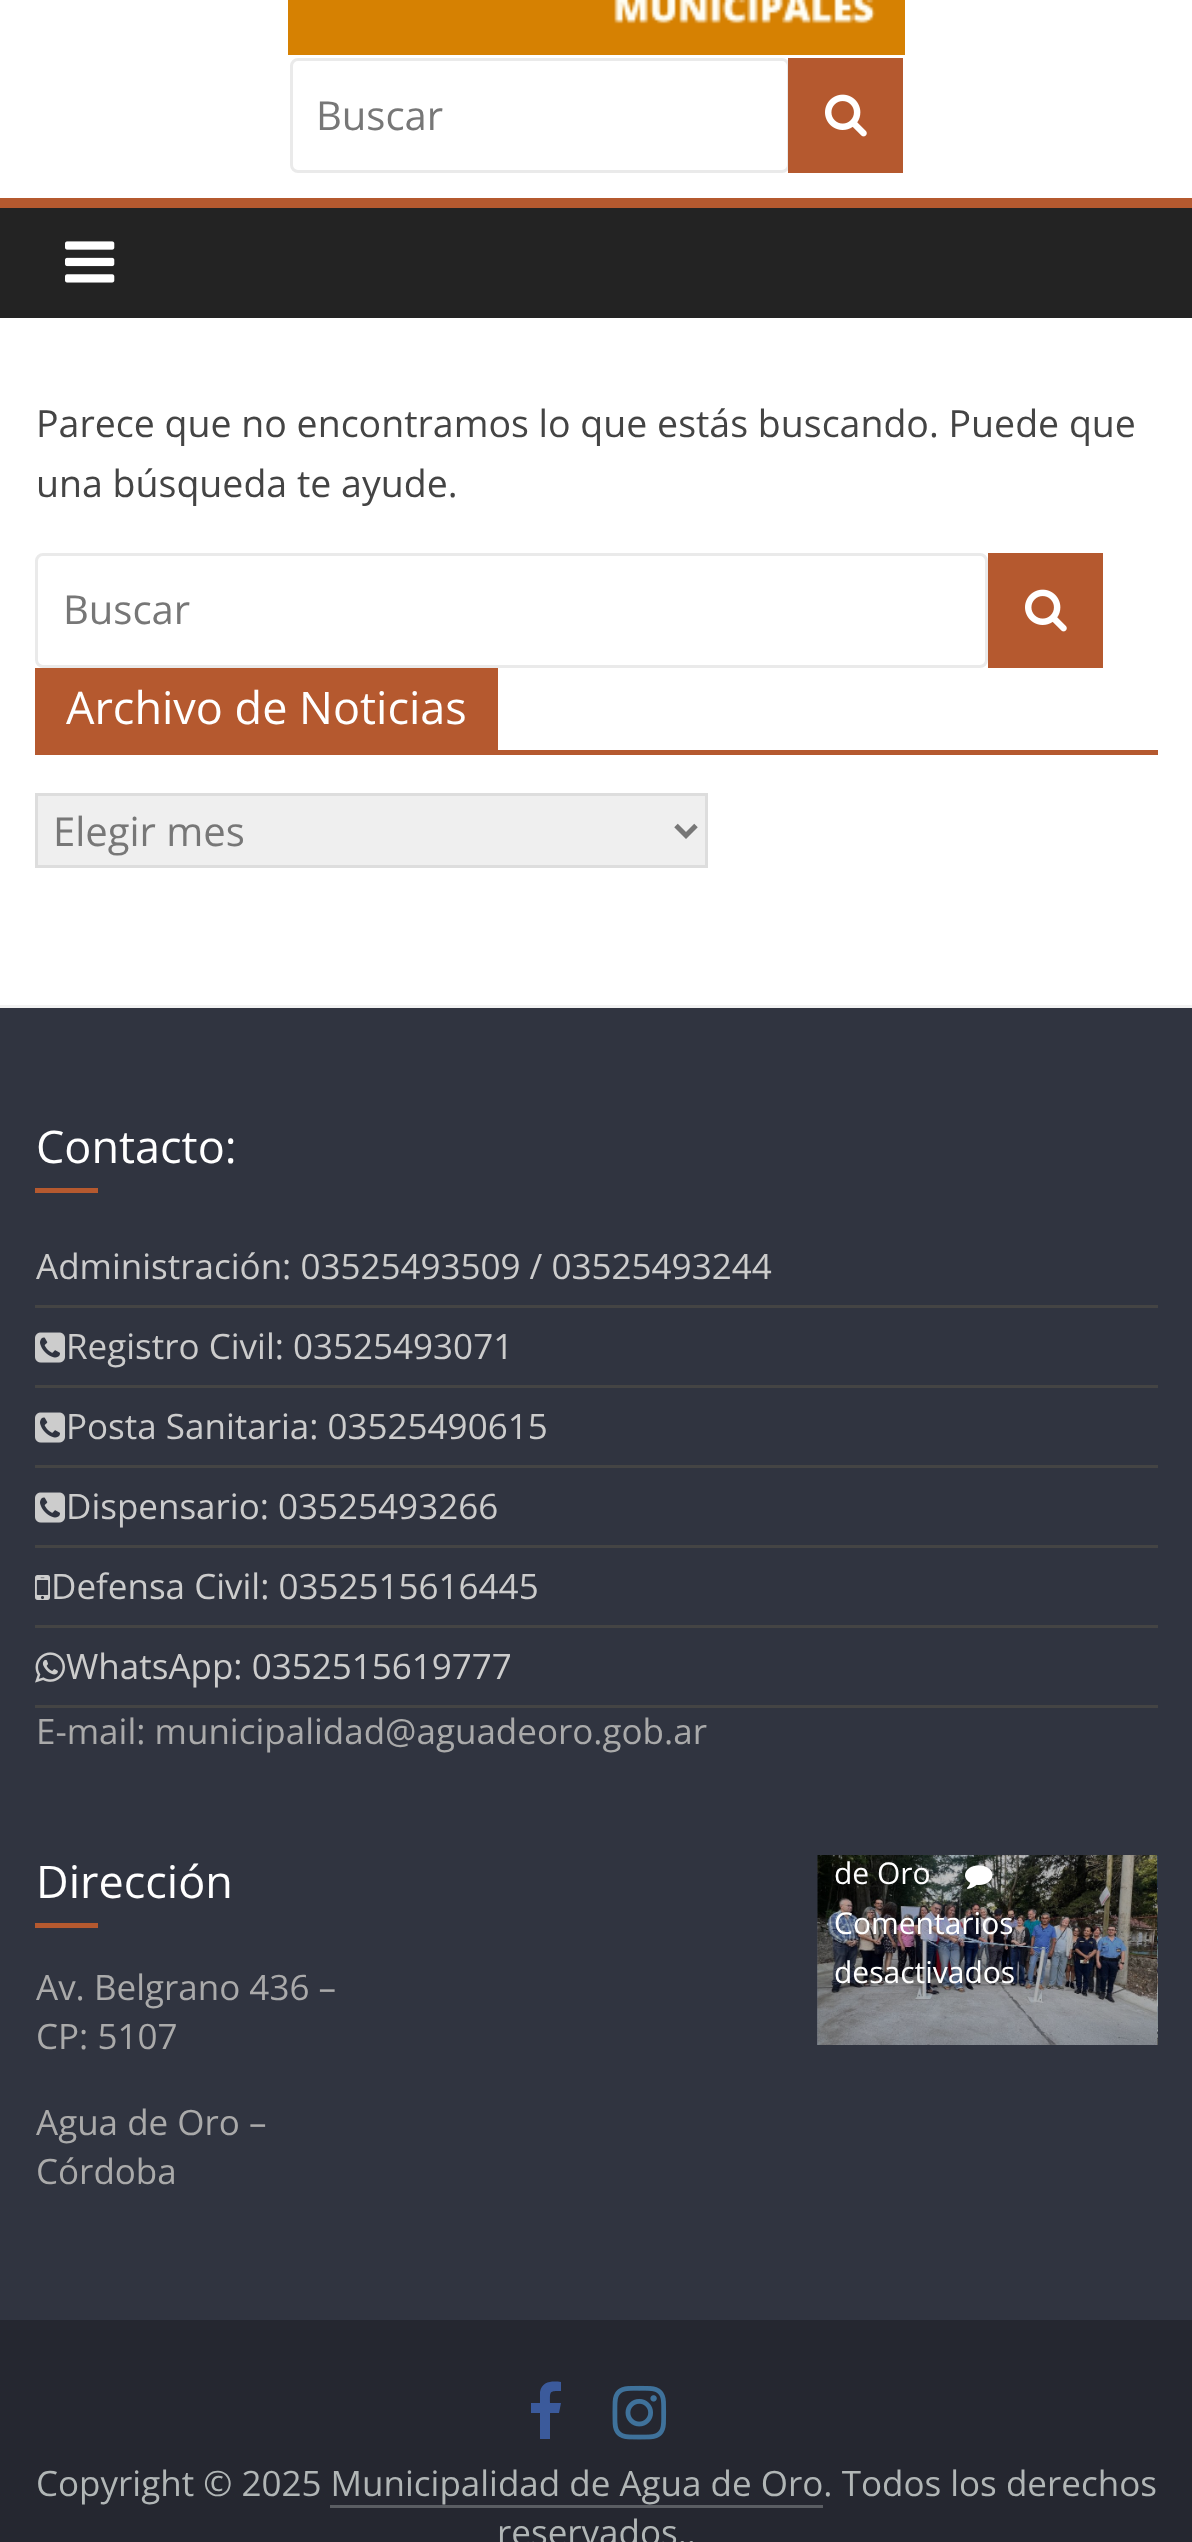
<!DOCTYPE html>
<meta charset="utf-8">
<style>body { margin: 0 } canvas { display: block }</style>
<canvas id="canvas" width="1192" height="2542"></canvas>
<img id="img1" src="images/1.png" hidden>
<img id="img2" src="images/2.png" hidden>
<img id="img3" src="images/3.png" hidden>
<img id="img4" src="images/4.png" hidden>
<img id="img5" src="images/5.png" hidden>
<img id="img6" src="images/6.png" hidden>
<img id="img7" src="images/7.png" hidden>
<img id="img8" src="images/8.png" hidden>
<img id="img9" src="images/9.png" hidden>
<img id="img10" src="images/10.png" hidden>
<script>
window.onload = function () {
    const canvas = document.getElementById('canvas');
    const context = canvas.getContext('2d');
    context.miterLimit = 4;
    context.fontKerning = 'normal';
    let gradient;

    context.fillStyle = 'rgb(255, 255, 255)';
    context.fillRect(0, 0, 1192, 2542);
    context.drawImage(document.getElementById('img1'), 288, 0, 617, 55);
    context.beginPath();
    context.roundRect(291.5, 59.5, 497, 112, 6.5);
    context.strokeStyle = 'rgb(234, 234, 234)';
    context.lineWidth = 3;
    context.stroke();
    context.fillStyle = 'rgb(181, 89, 47)';
    context.fillRect(788, 58, 115, 115);
    context.drawImage(document.getElementById('img2'), 825, 94, 42, 43);
    context.fillStyle = 'rgb(35, 35, 35)';
    context.fillRect(0, 208, 1192, 110);
    context.fillStyle = 'rgb(181, 89, 47)';
    context.fillRect(0, 198, 1192, 10);
    context.drawImage(document.getElementById('img3'), 65, 241, 50, 42);
    context.beginPath();
    context.roundRect(36.5, 554.5, 950, 112, 6.5);
    context.stroke();
    context.fillRect(988, 553, 115, 115);
    context.drawImage(document.getElementById('img2'), 1025, 589, 42, 43);
    context.fillRect(35, 750, 1123, 5);
    context.fillRect(35, 668, 463, 82);
    context.fillStyle = 'rgb(239, 239, 239)';
    context.beginPath();
    context.rect(36.5, 794.5, 670, 72);
    context.fill();
    context.strokeStyle = 'rgb(221, 221, 221)';
    context.stroke();
    context.beginPath();
    context.moveTo(676, 825.5);
    context.lineTo(686, 835.5);
    context.lineTo(696, 825.5);
    context.strokeStyle = 'rgb(119, 119, 119)';
    context.lineWidth = 5;
    context.stroke();
    context.fillStyle = 'rgb(48, 52, 64)';
    context.fillRect(0, 1008, 1192, 1312);
    context.fillStyle = 'rgb(242, 242, 242)';
    context.fillRect(0, 1005, 1192, 3);
    context.fillStyle = 'rgb(181, 89, 47)';
    context.fillRect(35, 1188, 63, 5);
    context.fillStyle = 'rgb(68, 68, 68)';
    context.fillRect(35, 1305, 1123, 3);
    context.fillRect(35, 1385, 1123, 3);
    context.drawImage(document.getElementById('img4'), 35, 1332, 30, 31);
    context.fillRect(35, 1465, 1123, 3);
    context.drawImage(document.getElementById('img4'), 35, 1412, 30, 31);
    context.fillRect(35, 1545, 1123, 3);
    context.drawImage(document.getElementById('img4'), 35, 1492, 30, 31);
    context.fillRect(35, 1625, 1123, 3);
    context.drawImage(document.getElementById('img5'), 35, 1575, 15, 25);
    context.fillRect(35, 1705, 1123, 3);
    context.drawImage(document.getElementById('img6'), 35, 1652, 30, 31);
    context.fillStyle = 'rgb(181, 89, 47)';
    context.fillRect(35, 1923, 63, 5);
    context.drawImage(document.getElementById('img7'), 817, 1855, 341, 190);
    gradient = context.createLinearGradient(988, 1080, 988, 2045);
    gradient.addColorStop(0, 'rgba(0, 0, 0, 0)');
    gradient.addColorStop(1, 'rgba(0, 0, 0, 0.3)');
    context.fillStyle = gradient;
    context.fillRect(818, 1855, 340, 190);
    context.drawImage(document.getElementById('img8'), 965, 1865, 28, 24);
    context.drawImage(document.getElementById('img9'), 1157, 1855, 1, 190);
    context.fillStyle = 'rgb(37, 39, 48)';
    context.fillRect(0, 2320, 1192, 222);
    context.fillStyle = 'rgb(59, 90, 155)';
    context.beginPath();
    context.moveTo(561, 2382);
    context.lineTo(561, 2391);
    context.bezierCurveTo(549, 2391, 550, 2391, 550, 2403);
    context.lineTo(561, 2403);
    context.lineTo(559, 2413);
    context.lineTo(550, 2413);
    context.lineTo(550, 2439);
    context.lineTo(540, 2439);
    context.lineTo(540, 2413);
    context.lineTo(531, 2413);
    context.lineTo(531, 2403);
    context.lineTo(540, 2403);
    context.lineTo(540, 2392);
    context.bezierCurveTo(542, 2381, 552, 2381, 561, 2382);
    context.closePath();
    context.fill();
    context.drawImage(document.getElementById('img10'), 612, 2385, 55, 55);
    context.fillStyle = 'rgb(90, 93, 98)';
    context.fillRect(330, 2505, 493, 3);
    context.font = '40px Open Sans';
    context.fillStyle = 'rgb(119, 119, 119)';
    context.fillText('Buscar', 316, 130);
    context.font = '37.5px Open Sans';
    context.fillStyle = 'rgb(68, 68, 68)';
    context.fillText('Parece que no encontramos lo que estás buscando. Puede que', 36, 437);
    context.fillText('una búsqueda te ayude.', 36, 497);
    context.font = '40px Open Sans';
    context.fillStyle = 'rgb(119, 119, 119)';
    context.fillText('Buscar', 63, 624);
    context.font = '45px Open Sans';
    context.fillStyle = 'rgb(255, 255, 255)';
    context.fillText('Archivo de Noticias', 66, 724);
    context.font = '40px Open Sans';
    context.fillStyle = 'rgb(119, 119, 119)';
    context.fillText('Elegir mes', 53, 846);
    context.font = '45px Open Sans';
    context.fillStyle = 'rgb(255, 255, 255)';
    context.fillText('Contacto:', 36, 1163);
    context.font = '35px Open Sans';
    context.fillStyle = 'rgb(204, 204, 204)';
    context.fillText('Administración: 03525493509 / 03525493244', 36, 1279);
    context.fillText('Registro Civil: 03525493071', 66, 1359);
    context.fillText('Posta Sanitaria: 03525490615', 66, 1439);
    context.fillText('Dispensario: 03525493266', 66, 1519);
    context.fillText('Defensa Civil: 0352515616445', 51, 1599);
    context.fillText('WhatsApp: 0352515619777', 66, 1679);
    context.fillStyle = 'rgb(170, 170, 170)';
    context.fillText('E-mail: municipalidad@aguadeoro.gob.ar', 36, 1744);
    context.font = '45px Open Sans';
    context.fillStyle = 'rgb(255, 255, 255)';
    context.fillText('Dirección', 36, 1898);
    context.font = '35px Open Sans';
    context.fillStyle = 'rgb(170, 170, 170)';
    context.fillText('Av. Belgrano 436 –', 36, 2000);
    context.fillText('CP: 5107', 36, 2049);
    context.fillText('Agua de Oro –', 36, 2135);
    context.fillText('Córdoba', 36, 2184);
    context.font = '30px Open Sans';
    context.fillStyle = 'rgb(255, 255, 255)';
    context.fillText('de Oro', 834, 1884);
    context.fillText('Comentarios', 834, 1934);
    context.fillText('desactivados', 834, 1983);
    context.font = '35px Open Sans';
    context.fillStyle = 'rgb(177, 182, 182)';
    context.fillText('Copyright © 2025 Municipalidad de Agua de Oro. Todos los derechos', 36, 2496);
    context.fillText('reservados..', 497, 2545);
};
</script>
